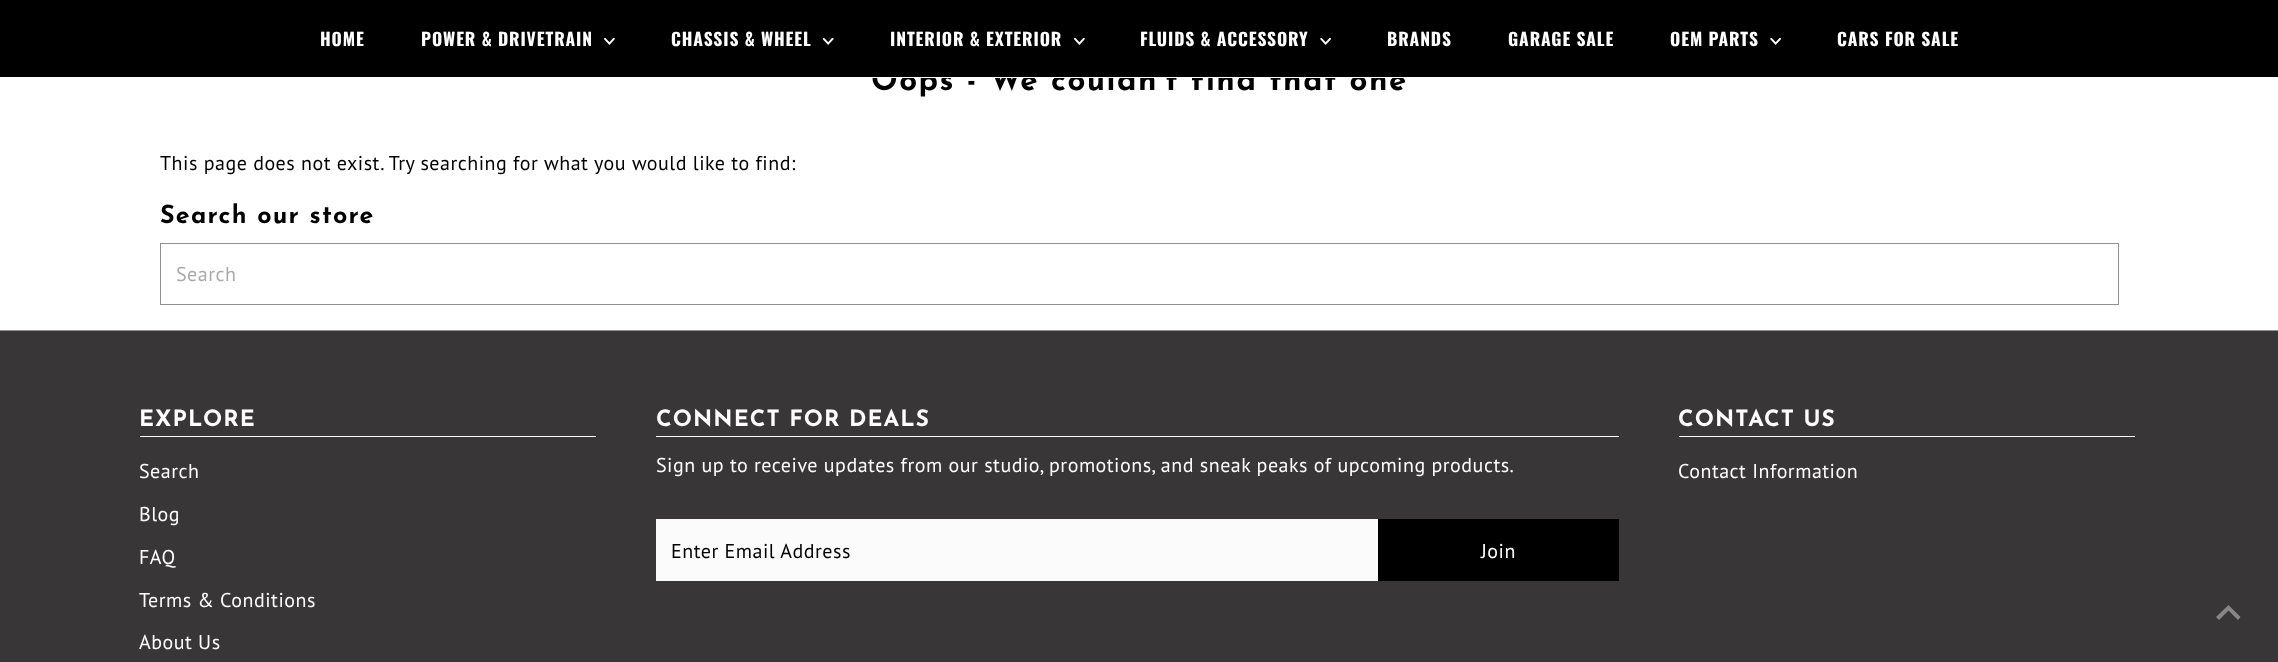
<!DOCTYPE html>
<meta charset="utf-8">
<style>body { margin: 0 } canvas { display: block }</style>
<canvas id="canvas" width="2278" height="662"></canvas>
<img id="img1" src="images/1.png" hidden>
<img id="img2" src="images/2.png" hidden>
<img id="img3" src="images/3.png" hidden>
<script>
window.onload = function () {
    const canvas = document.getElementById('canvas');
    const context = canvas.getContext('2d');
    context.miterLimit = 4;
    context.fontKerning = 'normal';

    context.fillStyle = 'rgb(255, 255, 255)';
    context.fillRect(0, 0, 2278, 662);
    context.fillStyle = 'rgb(0, 0, 0)';
    context.fillRect(0, 0, 2278, 1);
    context.fillRect(0, 1, 2278, 76);
    context.drawImage(document.getElementById('img1'), 604, 38, 11, 7);
    context.drawImage(document.getElementById('img2'), 823, 38, 11, 7);
    context.drawImage(document.getElementById('img1'), 1074, 38, 11, 7);
    context.drawImage(document.getElementById('img3'), 1320, 38, 11, 7);
    context.drawImage(document.getElementById('img3'), 1770, 38, 11, 7);
    context.strokeStyle = 'rgb(144, 144, 144)';
    context.strokeRect(160.5, 243.5, 1958, 61);
    context.fillStyle = 'rgb(56, 54, 54)';
    context.fillRect(0, 331, 2278, 331);
    context.fillStyle = 'rgb(144, 144, 144)';
    context.fillRect(0, 330, 2278, 1);
    context.fillStyle = 'rgb(255, 255, 255)';
    context.fillRect(140, 436, 456, 1);
    context.fillRect(656, 436, 963, 1);
    context.fillStyle = 'rgb(251, 251, 251)';
    context.fillRect(656, 519, 722, 62);
    context.fillStyle = 'rgb(0, 0, 0)';
    context.fillRect(1378, 519, 241, 62);
    context.fillStyle = 'rgb(255, 255, 255)';
    context.fillRect(1679, 436, 456, 1);
    context.fillStyle = 'rgb(136, 134, 134)';
    context.beginPath();
    context.moveTo(2228.5, 605);
    context.lineTo(2216, 617);
    context.lineTo(2219, 620);
    context.lineTo(2228.5, 610.5);
    context.lineTo(2238, 620);
    context.lineTo(2240.5, 617);
    context.closePath();
    context.fill();
    context.letterSpacing = '0.9px';
    context.font = 'bold 17.5px Oswald';
    context.fillStyle = 'rgb(255, 255, 255)';
    context.fillText('HOME', 320, 46);
    context.fillText('POWER & DRIVETRAIN', 421, 46);
    context.fillText('CHASSIS & WHEEL', 671, 46);
    context.fillText('INTERIOR & EXTERIOR', 890, 46);
    context.fillText('FLUIDS & ACCESSORY', 1140, 46);
    context.fillText('BRANDS', 1387, 46);
    context.fillText('GARAGE SALE', 1508, 46);
    context.fillText('OEM PARTS', 1670, 46);
    context.fillText('CARS FOR SALE', 1837, 46);
    context.letterSpacing = '1.55px';
    context.font = 'bold 31.25px Josefin Sans';
    context.fillStyle = 'rgb(0, 0, 0)';
    context.fillText('Oops - We couldn\'t find that one', 871, 90);
    context.fillStyle = 'rgb(255, 255, 255)';
    context.fillRect(872, 77, 532, 1);
    context.letterSpacing = '0.5px';
    context.font = '20px PT Sans';
    context.fillStyle = 'rgb(0, 0, 0)';
    context.fillText('This page does not exist. Try searching for what you would like to find:', 160, 170);
    context.letterSpacing = '1.25px';
    context.font = 'bold 25px Josefin Sans';
    context.fillText('Search our store', 160, 223);
    context.letterSpacing = '0.5px';
    context.font = '20px PT Sans';
    context.fillStyle = 'rgb(170, 170, 170)';
    context.fillText('Search', 176, 281);
    context.letterSpacing = '1.1px';
    context.font = 'bold 22.5px Josefin Sans';
    context.fillStyle = 'rgb(255, 255, 255)';
    context.fillText('EXPLORE', 139, 426);
    context.letterSpacing = '0.5px';
    context.font = '20px PT Sans';
    context.fillText('Search', 139, 478);
    context.fillText('Blog', 139, 521);
    context.fillText('FAQ', 139, 564);
    context.fillText('Terms & Conditions', 139, 607);
    context.fillText('About Us', 139, 649);
    context.letterSpacing = '1.1px';
    context.font = 'bold 22.5px Josefin Sans';
    context.fillText('CONNECT FOR DEALS', 656, 426);
    context.letterSpacing = '0.5px';
    context.font = '20px PT Sans';
    context.fillText('Sign up to receive updates from our studio, promotions, and sneak peaks of upcoming products.', 656, 472);
    context.fillStyle = 'rgb(0, 0, 0)';
    context.fillText('Enter Email Address', 671, 558);
    context.fillStyle = 'rgb(255, 255, 255)';
    context.fillText('Join', 1481, 558);
    context.letterSpacing = '1.1px';
    context.font = 'bold 22.5px Josefin Sans';
    context.fillText('CONTACT US', 1678, 426);
    context.letterSpacing = '0.5px';
    context.font = '20px PT Sans';
    context.fillText('Contact Information', 1678, 478);
};
</script>
